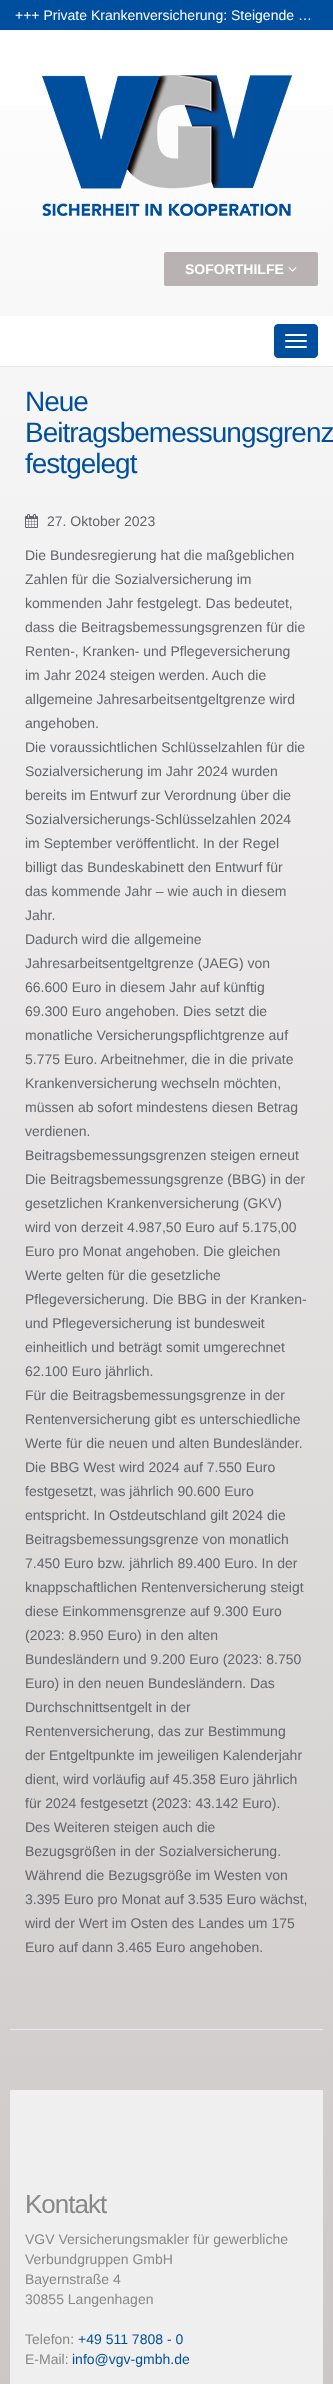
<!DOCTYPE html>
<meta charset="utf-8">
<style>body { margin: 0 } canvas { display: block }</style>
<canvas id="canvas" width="333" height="2384"></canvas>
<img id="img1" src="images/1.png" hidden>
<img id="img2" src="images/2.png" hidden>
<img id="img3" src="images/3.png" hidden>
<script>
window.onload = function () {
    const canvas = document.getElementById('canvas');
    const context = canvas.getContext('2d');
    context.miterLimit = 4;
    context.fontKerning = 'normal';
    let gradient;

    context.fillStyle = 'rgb(255, 255, 255)';
    context.fillRect(0, 0, 333, 2384);
    gradient = context.createLinearGradient(166, 0, 167, 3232);
    gradient.addColorStop(0, 'rgb(255, 255, 255)');
    gradient.addColorStop(1, 'rgb(184, 179, 178)');
    context.fillStyle = gradient;
    context.fillRect(0, 105, 333, 2279);
    context.fillStyle = 'rgb(0, 79, 158)';
    context.fillRect(0, 0, 333, 30);
    context.drawImage(document.getElementById('img1'), 42, 75, 250, 141);
    context.fillStyle = 'rgb(184, 179, 178)';
    context.beginPath();
    context.roundRect(164, 252, 154, 34, 2);
    context.fill();
    context.drawImage(document.getElementById('img2'), 288, 267, 9, 5);
    context.fillStyle = 'rgb(255, 255, 255)';
    context.fillRect(0, 316, 333, 50);
    context.fillStyle = 'rgb(226, 230, 237)';
    context.fillRect(0, 366, 333, 1);
    context.fillStyle = 'rgb(0, 79, 158)';
    context.beginPath();
    context.roundRect(274.5, 324.5, 43, 33, 3.5);
    context.fill();
    context.strokeStyle = 'rgb(0, 79, 158)';
    context.stroke();
    context.fillStyle = 'rgb(255, 255, 255)';
    context.beginPath();
    context.roundRect(285, 334, 22, 2, 1);
    context.fill();
    context.beginPath();
    context.roundRect(285, 340, 22, 2, 1);
    context.fill();
    context.beginPath();
    context.roundRect(285, 346, 22, 2, 1);
    context.fill();
    context.fillStyle = 'rgb(229, 234, 244)';
    context.fillRect(10, 2029, 313, 1);
    context.drawImage(document.getElementById('img3'), 25, 514, 13, 14);
    context.fillStyle = 'rgb(239, 239, 239)';
    context.fillRect(10, 2090, 313, 294);
    context.font = '14px Liberation Sans';
    context.fillStyle = 'rgb(255, 255, 255)';
    context.fillText('+++ Private Krankenversicherung: Steigende …', 15, 20);
    context.font = 'bold 14px Liberation Sans';
    context.fillText('SOFORTHILFE', 185, 274);
    context.letterSpacing = '-1px';
    context.font = '28px Liberation Sans';
    context.fillStyle = 'rgb(0, 79, 158)';
    context.fillText('Neue', 25, 411);
    context.fillText('Beitragsbemessungsgrenz', 25, 442);
    context.fillText('festgelegt', 25, 473);
    context.letterSpacing = '0px';
    context.font = '14px Liberation Sans';
    context.fillStyle = 'rgb(98, 101, 106)';
    context.fillText('27. Oktober 2023', 47, 526);
    context.fillText('Die Bundesregierung hat die maßgeblichen', 25, 560);
    context.fillText('Zahlen für die Sozialversicherung im', 25, 584);
    context.fillText('kommenden Jahr festgelegt. Das bedeutet,', 25, 608);
    context.fillText('dass die Beitragsbemessungsgrenzen für die', 25, 632);
    context.fillText('Renten-, Kranken- und Pflegeversicherung', 25, 656);
    context.fillText('im Jahr 2024 steigen werden. Auch die', 25, 680);
    context.fillText('allgemeine Jahresarbeitsentgeltgrenze wird', 25, 704);
    context.fillText('angehoben.', 25, 728);
    context.fillText('Die voraussichtlichen Schlüsselzahlen für die', 25, 752);
    context.fillText('Sozialversicherung im Jahr 2024 wurden', 25, 776);
    context.fillText('bereits im Entwurf zur Verordnung über die', 25, 800);
    context.fillText('Sozialversicherungs-Schlüsselzahlen 2024', 25, 824);
    context.fillText('im September veröffentlicht. In der Regel', 25, 848);
    context.fillText('billigt das Bundeskabinett den Entwurf für', 25, 872);
    context.fillText('das kommende Jahr – wie auch in diesem', 25, 896);
    context.fillText('Jahr.', 25, 920);
    context.fillText('Dadurch wird die allgemeine', 25, 944);
    context.fillText('Jahresarbeitsentgeltgrenze (JAEG) von', 25, 968);
    context.fillText('66.600 Euro in diesem Jahr auf künftig', 25, 992);
    context.fillText('69.300 Euro angehoben. Dies setzt die', 25, 1016);
    context.fillText('monatliche Versicherungspflichtgrenze auf', 25, 1040);
    context.fillText('5.775 Euro. Arbeitnehmer, die in die private', 25, 1064);
    context.fillText('Krankenversicherung wechseln möchten,', 25, 1088);
    context.fillText('müssen ab sofort mindestens diesen Betrag', 25, 1112);
    context.fillText('verdienen.', 25, 1136);
    context.fillText('Beitragsbemessungsgrenzen steigen erneut', 25, 1160);
    context.fillText('Die Beitragsbemessungsgrenze (BBG) in der', 25, 1184);
    context.fillText('gesetzlichen Krankenversicherung (GKV)', 25, 1208);
    context.fillText('wird von derzeit 4.987,50 Euro auf 5.175,00', 25, 1232);
    context.fillText('Euro pro Monat angehoben. Die gleichen', 25, 1256);
    context.fillText('Werte gelten für die gesetzliche', 25, 1280);
    context.fillText('Pflegeversicherung. Die BBG in der Kranken-', 25, 1304);
    context.fillText('und Pflegeversicherung ist bundesweit', 25, 1328);
    context.fillText('einheitlich und beträgt somit umgerechnet', 25, 1352);
    context.fillText('62.100 Euro jährlich.', 25, 1376);
    context.fillText('Für die Beitragsbemessungsgrenze in der', 25, 1400);
    context.fillText('Rentenversicherung gibt es unterschiedliche', 25, 1424);
    context.fillText('Werte für die neuen und alten Bundesländer.', 25, 1448);
    context.fillText('Die BBG West wird 2024 auf 7.550 Euro', 25, 1472);
    context.fillText('festgesetzt, was jährlich 90.600 Euro', 25, 1496);
    context.fillText('entspricht. In Ostdeutschland gilt 2024 die', 25, 1520);
    context.fillText('Beitragsbemessungsgrenze von monatlich', 25, 1544);
    context.fillText('7.450 Euro bzw. jährlich 89.400 Euro. In der', 25, 1568);
    context.fillText('knappschaftlichen Rentenversicherung steigt', 25, 1592);
    context.fillText('diese Einkommensgrenze auf 9.300 Euro', 25, 1616);
    context.fillText('(2023: 8.950 Euro) in den alten', 25, 1640);
    context.fillText('Bundesländern und 9.200 Euro (2023: 8.750', 25, 1664);
    context.fillText('Euro) in den neuen Bundesländern. Das', 25, 1688);
    context.fillText('Durchschnittsentgelt in der', 25, 1712);
    context.fillText('Rentenversicherung, das zur Bestimmung', 25, 1736);
    context.fillText('der Entgeltpunkte im jeweiligen Kalenderjahr', 25, 1760);
    context.fillText('dient, wird vorläufig auf 45.358 Euro jährlich', 25, 1784);
    context.fillText('für 2024 festgesetzt (2023: 43.142 Euro).', 25, 1808);
    context.fillText('Des Weiteren steigen auch die', 25, 1832);
    context.fillText('Bezugsgrößen in der Sozialversicherung.', 25, 1856);
    context.fillText('Während die Bezugsgröße im Westen von', 25, 1880);
    context.fillText('3.395 Euro pro Monat auf 3.535 Euro wächst,', 25, 1904);
    context.fillText('wird der Wert im Osten des Landes um 175', 25, 1928);
    context.fillText('Euro auf dann 3.465 Euro angehoben.', 25, 1952);
    context.letterSpacing = '-1px';
    context.font = '26px Liberation Sans';
    context.fillStyle = 'rgb(136, 136, 136)';
    context.fillText('Kontakt', 25, 2213);
    context.letterSpacing = '0px';
    context.font = '14px Liberation Sans';
    context.fillText('VGV Versicherungsmakler für gewerbliche', 25, 2244);
    context.fillText('Verbundgruppen GmbH', 25, 2264);
    context.fillText('Bayernstraße 4', 25, 2284);
    context.fillText('30855 Langenhagen', 25, 2304);
    context.fillText('Telefon:', 25, 2344);
    context.fillStyle = 'rgb(0, 79, 158)';
    context.fillText('+49 511 7808 - 0', 78, 2344);
    context.fillStyle = 'rgb(136, 136, 136)';
    context.fillText('E-Mail:', 25, 2364);
    context.fillStyle = 'rgb(0, 79, 158)';
    context.fillText('info@vgv-gmbh.de', 72, 2364);
};
</script>
